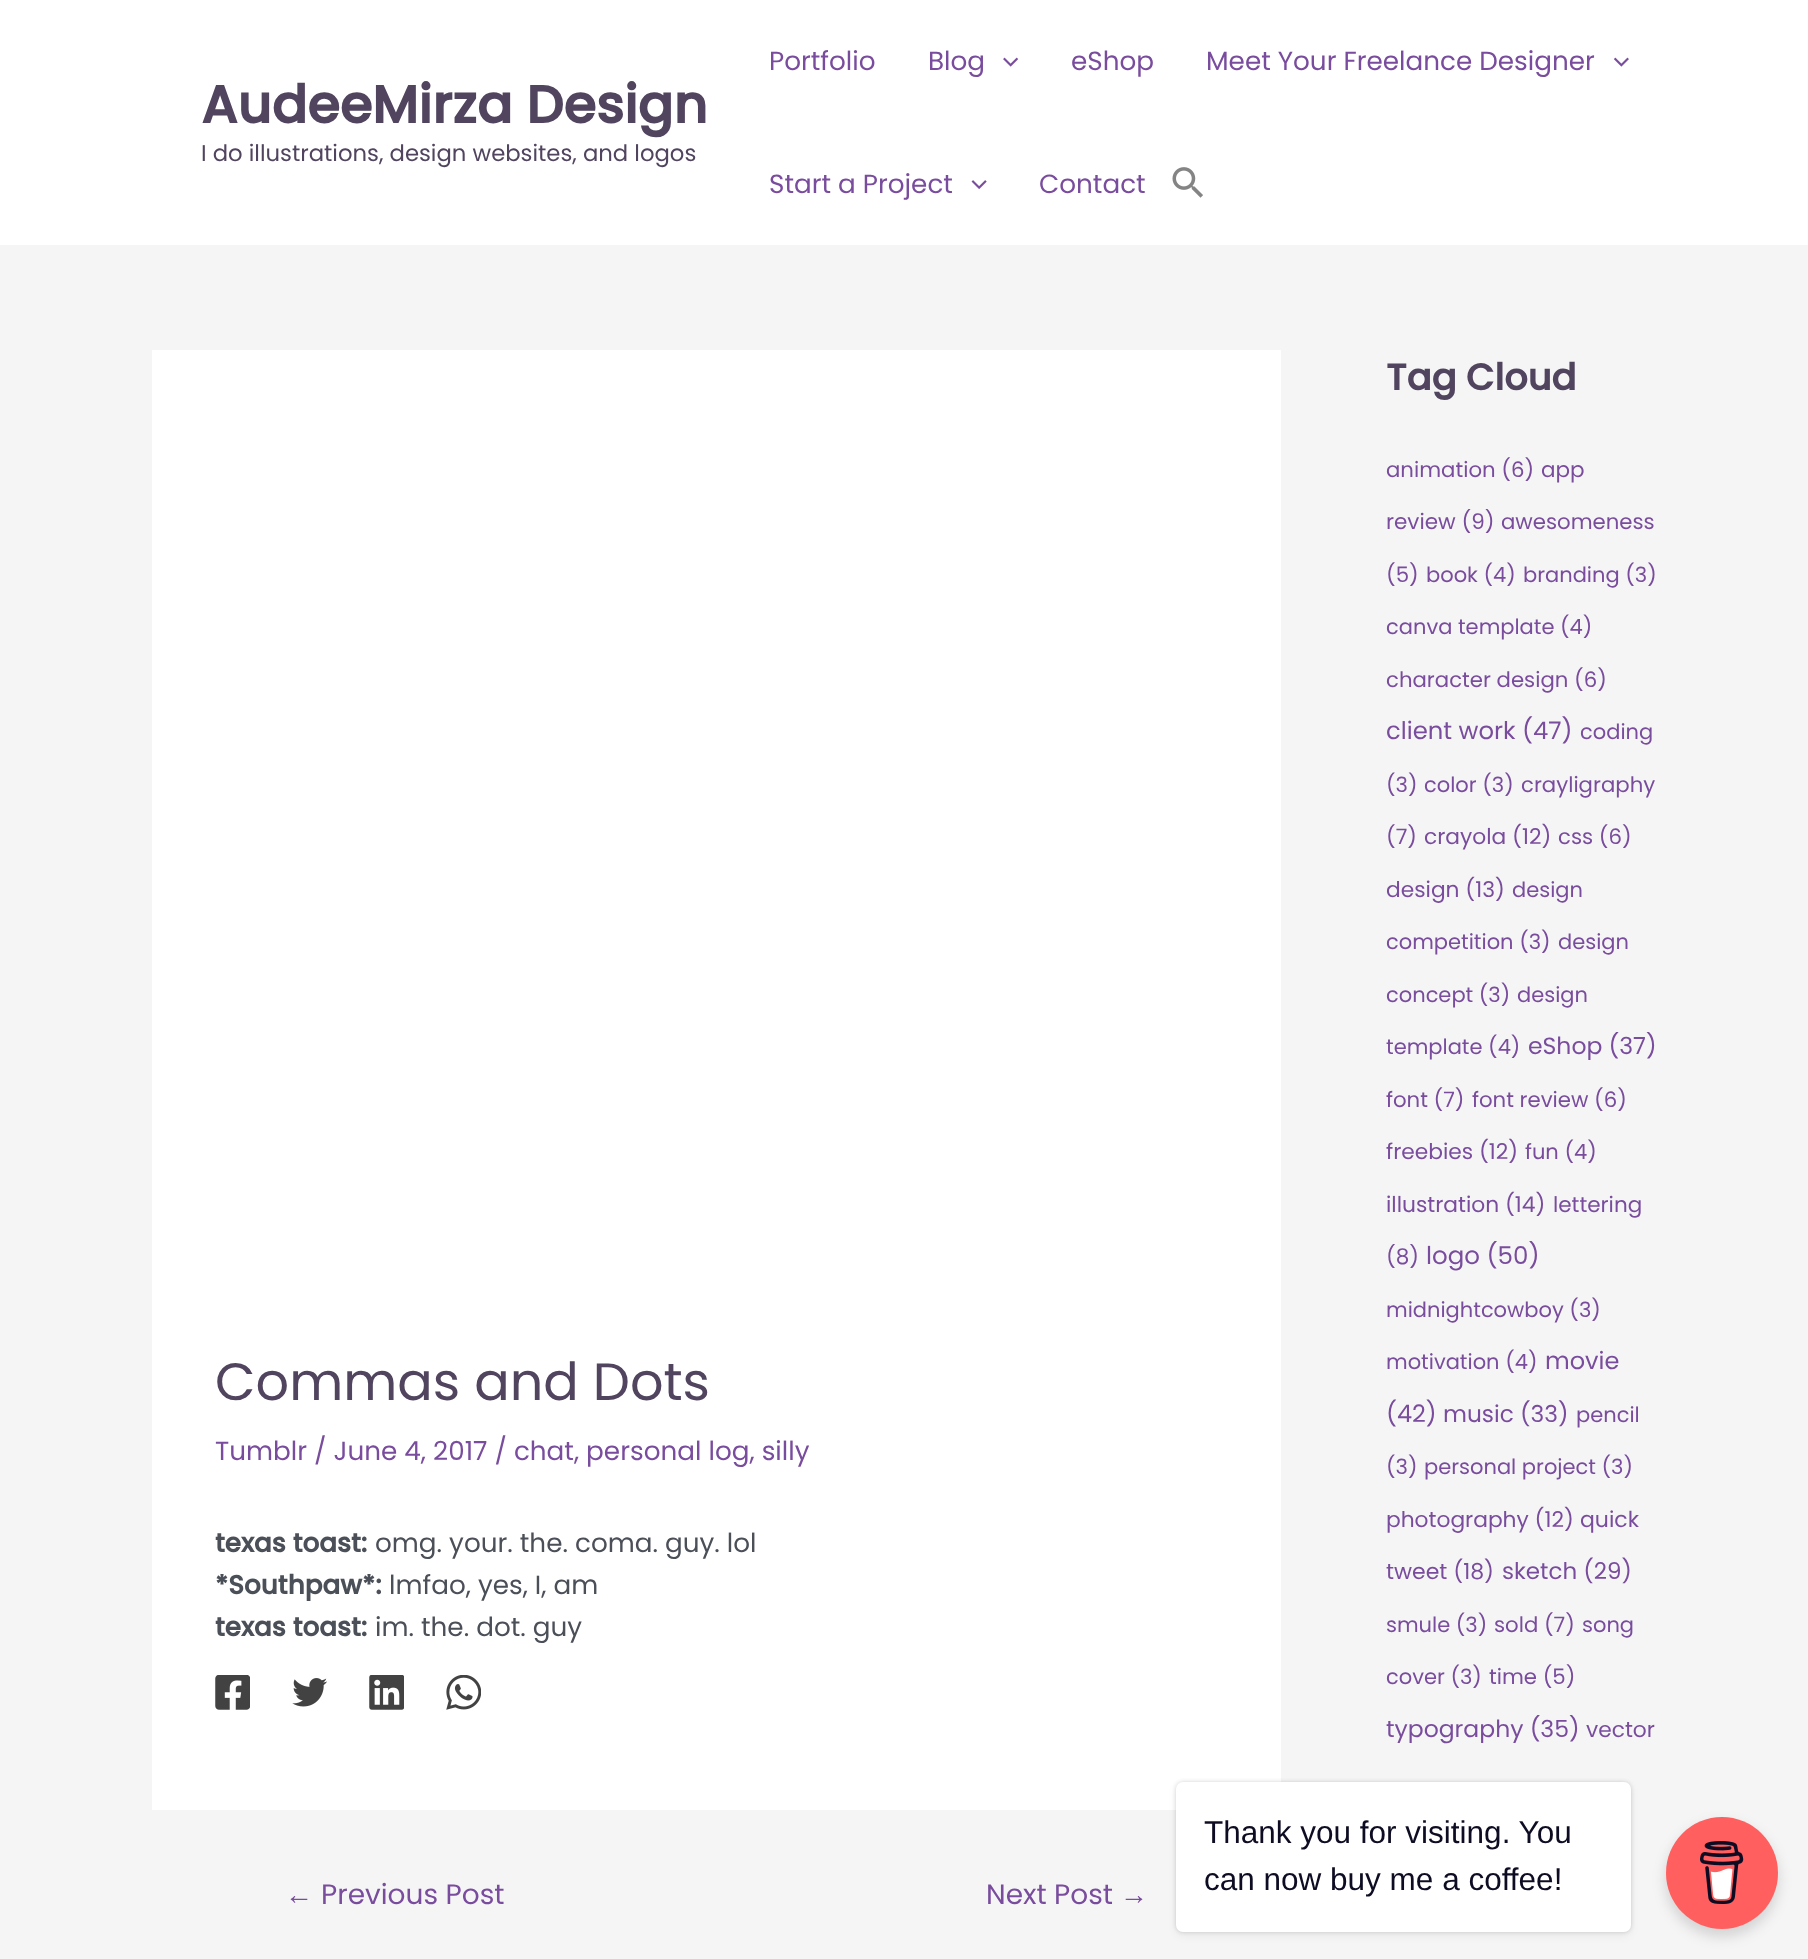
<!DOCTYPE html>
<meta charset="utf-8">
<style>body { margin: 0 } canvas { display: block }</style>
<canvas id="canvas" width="1808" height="1959"></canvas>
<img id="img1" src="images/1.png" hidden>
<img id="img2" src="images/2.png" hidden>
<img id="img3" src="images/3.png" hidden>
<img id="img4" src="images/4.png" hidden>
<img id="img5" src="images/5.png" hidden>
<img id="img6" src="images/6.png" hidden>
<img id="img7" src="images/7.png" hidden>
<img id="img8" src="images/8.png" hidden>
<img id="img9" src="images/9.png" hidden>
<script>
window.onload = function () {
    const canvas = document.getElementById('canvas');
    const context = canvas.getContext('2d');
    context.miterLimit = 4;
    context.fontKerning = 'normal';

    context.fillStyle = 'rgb(245, 245, 245)';
    context.fillRect(0, 0, 1808, 1959);
    context.fillStyle = 'rgb(255, 255, 255)';
    context.fillRect(0, 0, 1808, 245);
    context.drawImage(document.getElementById('img1'), 1003, 57, 16, 10);
    context.drawImage(document.getElementById('img2'), 1614, 57, 15, 10);
    context.drawImage(document.getElementById('img3'), 971, 180, 16, 10);
    context.drawImage(document.getElementById('img4'), 1172, 167, 31, 31);
    context.fillRect(152, 350, 1129, 1460);
    context.drawImage(document.getElementById('img5'), 215, 1675, 35, 35);
    context.drawImage(document.getElementById('img6'), 292, 1678, 35, 29);
    context.drawImage(document.getElementById('img7'), 369, 1675, 35, 35);
    context.drawImage(document.getElementById('img8'), 446, 1675, 35, 35);
    context.fillStyle = 'rgba(0, 0, 0, 0.15)';
    context.filter = 'blur(7px)';
    context.beginPath();
    context.roundRect(1666, 1824, 112, 112, 56);
    context.fill();
    context.filter = 'none';
    context.fillStyle = 'rgb(255, 95, 95)';
    context.beginPath();
    context.arc(1722, 1873, 56, 0, 2 * Math.PI);
    context.fill();
    context.drawImage(document.getElementById('img9'), 1700, 1841, 44, 63);
    context.fillStyle = 'rgba(0, 0, 0, 0.15)';
    context.filter = 'blur(2px)';
    context.beginPath();
    context.roundRect(1176, 1782, 455, 150, 7);
    context.fill();
    context.filter = 'none';
    context.fillStyle = 'rgba(0, 0, 0, 0.05)';
    context.filter = 'blur(4.5px)';
    context.beginPath();
    context.roundRect(1176, 1785, 455, 151, 7);
    context.fill();
    context.filter = 'none';
    context.fillStyle = 'rgb(255, 255, 255)';
    context.beginPath();
    context.roundRect(1176, 1782, 455, 150, 7);
    context.fill();
    context.font = 'bold 52.5px Poppins';
    context.fillStyle = 'rgb(81, 68, 95)';
    context.fillText('AudeeMirza Design', 201, 123);
    context.font = '22.75px Poppins';
    context.fillText('I do illustrations, design websites, and logos', 201, 161);
    context.font = '26.25px Poppins';
    context.fillStyle = 'rgb(121, 76, 157)';
    context.fillText('Portfolio', 769, 70);
    context.fillText('Blog', 928, 70);
    context.fillText('eShop', 1071, 70);
    context.fillText('Meet Your Freelance Designer', 1206, 70);
    context.fillText('Start a Project', 769, 193);
    context.fillText('Contact', 1039, 193);
    context.font = '52.5px Poppins';
    context.fillStyle = 'rgb(81, 68, 95)';
    context.fillText('Commas and Dots', 215, 1400);
    context.font = '26.25px Poppins';
    context.fillStyle = 'rgb(121, 76, 157)';
    context.fillText('Tumblr / June 4, 2017 / chat, personal log, silly', 215, 1460);
    context.font = 'bold 26.25px Poppins';
    context.fillStyle = 'rgb(75, 79, 88)';
    context.fillText('texas toast:', 215, 1552);
    context.font = '26.25px Poppins';
    context.fillText('omg. your. the. coma. guy. lol', 375, 1552);
    context.font = 'bold 26.25px Poppins';
    context.fillText('*Southpaw*:', 215, 1594);
    context.font = '26.25px Poppins';
    context.fillText('lmfao, yes, I, am', 389, 1594);
    context.font = 'bold 26.25px Poppins';
    context.fillText('texas toast:', 215, 1636);
    context.font = '26.25px Poppins';
    context.fillText('im. the. dot. guy', 375, 1636);
    context.font = '28px Liberation Sans';
    context.fillStyle = 'rgb(121, 76, 157)';
    context.fillText('←', 285, 1904);
    context.font = '28px Poppins';
    context.fillText('Previous Post', 321, 1904);
    context.fillText('Next Post', 986, 1904);
    context.font = '28px Liberation Sans';
    context.fillText('→', 1120, 1904);
    context.font = 'bold 36.75px Poppins';
    context.fillStyle = 'rgb(81, 68, 95)';
    context.fillText('Tag Cloud', 1386, 390);
    context.font = '21.25px Poppins';
    context.fillStyle = 'rgb(121, 76, 157)';
    context.fillText('animation (6)', 1386, 477);
    context.font = '21.5px Poppins';
    context.fillText('app', 1541, 477);
    context.fillText('review (9)', 1386, 529);
    context.font = '21.25px Poppins';
    context.fillText('awesomeness', 1501, 529);
    context.fillText('(5)', 1386, 582);
    context.font = '21px Poppins';
    context.fillText('book (4)', 1426, 582);
    context.fillText('branding (3)', 1523, 582);
    context.fillText('canva template (4)', 1386, 634);
    context.font = '21.25px Poppins';
    context.fillText('character design (6)', 1386, 687);
    context.font = '24.25px Poppins';
    context.fillText('client work (47)', 1386, 739);
    context.font = '21px Poppins';
    context.fillText('coding', 1580, 739);
    context.fillText('(3)', 1386, 792);
    context.fillText('color (3)', 1424, 792);
    context.font = '21.25px Poppins';
    context.fillText('crayligraphy', 1521, 792);
    context.fillText('(7)', 1386, 844);
    context.font = '21.75px Poppins';
    context.fillText('crayola (12)', 1424, 844);
    context.font = '21.25px Poppins';
    context.fillText('css (6)', 1558, 844);
    context.font = '21.75px Poppins';
    context.fillText('design (13)', 1386, 897);
    context.font = '21px Poppins';
    context.fillText('design', 1512, 897);
    context.fillText('competition (3)', 1386, 949);
    context.fillText('design', 1558, 949);
    context.fillText('concept (3)', 1386, 1002);
    context.fillText('design', 1517, 1002);
    context.fillText('template (4)', 1386, 1054);
    context.font = '23.5px Poppins';
    context.fillText('eShop (37)', 1528, 1054);
    context.font = '21.25px Poppins';
    context.fillText('font (7)', 1386, 1107);
    context.fillText('font review (6)', 1472, 1107);
    context.font = '21.75px Poppins';
    context.fillText('freebies (12)', 1386, 1159);
    context.font = '21px Poppins';
    context.fillText('fun (4)', 1525, 1159);
    context.font = '21.75px Poppins';
    context.fillText('illustration (14)', 1386, 1212);
    context.font = '21.5px Poppins';
    context.fillText('lettering', 1553, 1212);
    context.fillText('(8)', 1386, 1264);
    context.font = '24.5px Poppins';
    context.fillText('logo (50)', 1426, 1264);
    context.font = '21px Poppins';
    context.fillText('midnightcowboy (3)', 1386, 1317);
    context.fillText('motivation (4)', 1386, 1369);
    context.font = '24px Poppins';
    context.fillText('movie', 1545, 1369);
    context.fillText('(42)', 1386, 1422);
    context.font = '23.25px Poppins';
    context.fillText('music (33)', 1443, 1422);
    context.font = '21px Poppins';
    context.fillText('pencil', 1576, 1422);
    context.fillText('(3)', 1386, 1474);
    context.fillText('personal project (3)', 1424, 1474);
    context.font = '21.75px Poppins';
    context.fillText('photography (12)', 1386, 1527);
    context.font = '22px Poppins';
    context.fillText('quick', 1580, 1527);
    context.fillText('tweet (18)', 1386, 1579);
    context.font = '23px Poppins';
    context.fillText('sketch (29)', 1502, 1579);
    context.font = '21px Poppins';
    context.fillText('smule (3)', 1386, 1632);
    context.font = '21.25px Poppins';
    context.fillText('sold (7)', 1494, 1632);
    context.font = '21px Poppins';
    context.fillText('song', 1582, 1632);
    context.fillText('cover (3)', 1386, 1684);
    context.font = '21.25px Poppins';
    context.fillText('time (5)', 1489, 1684);
    context.font = '23.5px Poppins';
    context.fillText('typography (35)', 1386, 1737);
    context.font = '21.75px Poppins';
    context.fillText('vector', 1586, 1737);
    context.font = '31.5px Liberation Sans';
    context.fillStyle = 'rgb(13, 12, 34)';
    context.fillText('Thank you for visiting. You', 1204, 1843);
    context.fillText('can now buy me a coffee!', 1204, 1890);
};
</script>
